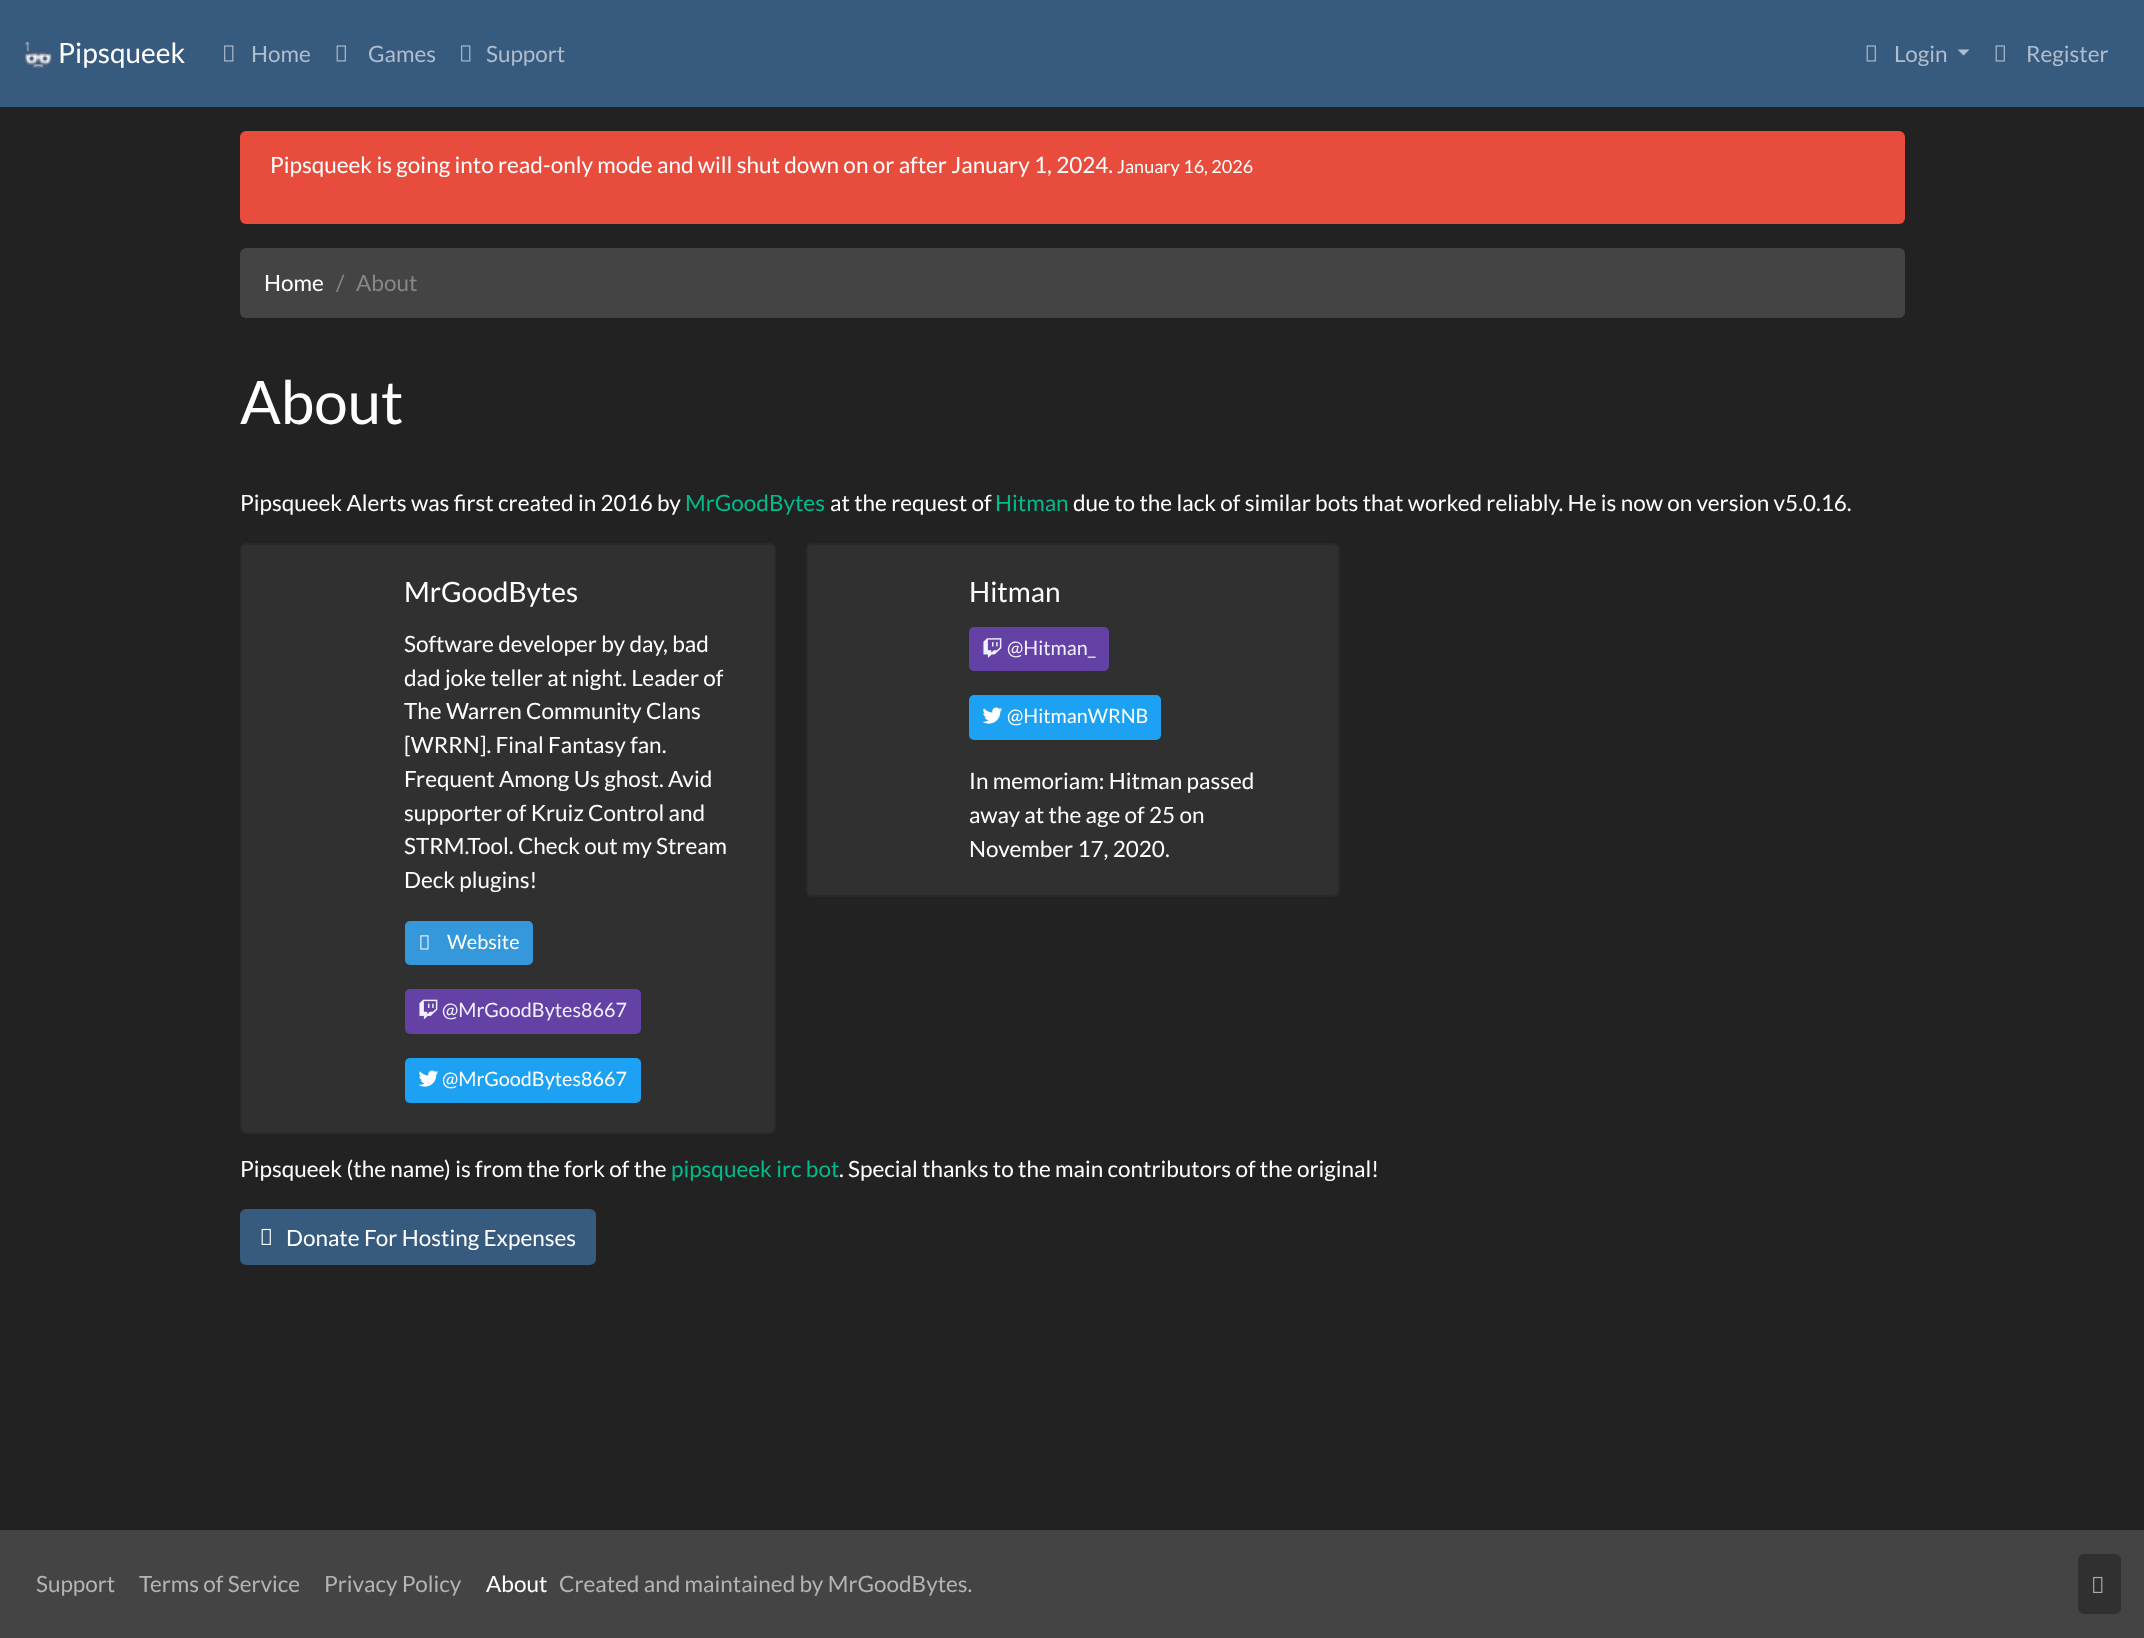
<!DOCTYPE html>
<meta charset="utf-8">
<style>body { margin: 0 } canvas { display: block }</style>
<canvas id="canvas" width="2144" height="1638"></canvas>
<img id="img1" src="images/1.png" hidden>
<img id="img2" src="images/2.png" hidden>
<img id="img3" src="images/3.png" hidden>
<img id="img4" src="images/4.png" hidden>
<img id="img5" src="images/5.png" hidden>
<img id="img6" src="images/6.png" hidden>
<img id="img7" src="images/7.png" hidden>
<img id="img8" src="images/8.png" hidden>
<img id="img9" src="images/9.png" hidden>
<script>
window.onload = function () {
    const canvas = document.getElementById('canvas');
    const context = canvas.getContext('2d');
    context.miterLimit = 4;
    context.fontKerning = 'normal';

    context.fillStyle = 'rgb(34, 34, 34)';
    context.fillRect(0, 0, 2144, 1638);
    context.fillStyle = 'rgb(55, 90, 127)';
    context.fillRect(0, 0, 2144, 107);
    context.drawImage(document.getElementById('img1'), 24, 42, 29, 27);
    context.drawImage(document.getElementById('img2'), 224, 45, 10, 17);
    context.drawImage(document.getElementById('img3'), 336, 45, 10, 17);
    context.drawImage(document.getElementById('img2'), 461, 45, 10, 17);
    context.drawImage(document.getElementById('img3'), 1866, 45, 10, 17);
    context.fillStyle = 'rgb(175, 189, 204)';
    context.beginPath();
    context.moveTo(1957.5, 49.5);
    context.lineTo(1969.5, 49.5);
    context.lineTo(1963.5, 55.5);
    context.closePath();
    context.fill();
    context.drawImage(document.getElementById('img3'), 1995, 45, 10, 17);
    context.fillStyle = 'rgb(231, 76, 60)';
    context.beginPath();
    context.roundRect(240, 131, 1665, 93, 6);
    context.fill();
    context.fillStyle = 'rgb(68, 68, 68)';
    context.beginPath();
    context.roundRect(240, 248, 1665, 70, 6);
    context.fill();
    context.fillStyle = 'rgb(48, 48, 48)';
    context.beginPath();
    context.roundRect(240, 543, 536, 591, 6);
    context.fill();
    context.beginPath();
    context.roundRect(241, 544, 534, 589, 5);
    context.strokeStyle = 'rgba(0, 0, 0, 0.12)';
    context.lineWidth = 2;
    context.stroke();
    context.fillStyle = 'rgb(52, 152, 219)';
    context.beginPath();
    context.roundRect(406, 922, 126, 42, 4);
    context.fill();
    context.strokeStyle = 'rgb(52, 152, 219)';
    context.stroke();
    context.drawImage(document.getElementById('img4'), 420, 935, 9, 15);
    context.fillStyle = 'rgb(100, 65, 164)';
    context.beginPath();
    context.roundRect(405, 989, 236, 45, 5);
    context.fill();
    context.drawImage(document.getElementById('img5'), 419, 999, 19, 21);
    context.fillStyle = 'rgb(29, 161, 242)';
    context.beginPath();
    context.roundRect(405, 1058, 236, 45, 5);
    context.fill();
    context.drawImage(document.getElementById('img6'), 418, 1070, 21, 17);
    context.fillStyle = 'rgb(48, 48, 48)';
    context.beginPath();
    context.roundRect(806, 543, 534, 354, 6);
    context.fill();
    context.beginPath();
    context.roundRect(807, 544, 532, 352, 5);
    context.strokeStyle = 'rgba(0, 0, 0, 0.12)';
    context.stroke();
    context.fillStyle = 'rgb(100, 65, 164)';
    context.beginPath();
    context.roundRect(969, 627, 140, 44, 5);
    context.fill();
    context.drawImage(document.getElementById('img7'), 983, 638, 19, 20);
    context.fillStyle = 'rgb(29, 161, 242)';
    context.beginPath();
    context.roundRect(969, 695, 192, 45, 5);
    context.fill();
    context.drawImage(document.getElementById('img6'), 982, 707, 21, 17);
    context.fillStyle = 'rgb(55, 90, 127)';
    context.beginPath();
    context.roundRect(241, 1210, 354, 54, 5);
    context.fill();
    context.strokeStyle = 'rgb(55, 90, 127)';
    context.stroke();
    context.drawImage(document.getElementById('img8'), 261, 1228, 10, 17);
    context.fillStyle = 'rgb(68, 68, 68)';
    context.fillRect(0, 1530, 2144, 108);
    context.fillStyle = 'rgb(48, 48, 48)';
    context.beginPath();
    context.roundRect(2079, 1555, 41, 58, 5);
    context.fill();
    context.strokeStyle = 'rgb(48, 48, 48)';
    context.stroke();
    context.drawImage(document.getElementById('img9'), 2093, 1576, 10, 17);
    context.font = '28px Lato';
    context.fillStyle = 'rgb(255, 255, 255)';
    context.fillText('Pipsqueek', 58, 63);
    context.font = '22.5px Lato';
    context.fillStyle = 'rgb(175, 189, 204)';
    context.fillText('Home', 251, 62);
    context.fillText('Games', 368, 62);
    context.fillText('Support', 486, 62);
    context.fillText('Login', 1894, 62);
    context.fillText('Register', 2026, 62);
    context.fillStyle = 'rgb(255, 255, 255)';
    context.fillText('Pipsqueek is going into read-only mode and will shut down on or after January 1, 2024.', 270, 173);
    context.font = '18px Lato';
    context.fillText('January 16, 2026', 1117, 173);
    context.font = '22.5px Lato';
    context.fillText('Home', 264, 291);
    context.fillStyle = 'rgb(136, 136, 136)';
    context.fillText('/', 336, 291);
    context.fillText('About', 356, 291);
    context.font = '60px Lato';
    context.fillStyle = 'rgb(255, 255, 255)';
    context.fillText('About', 240, 424);
    context.font = '22.5px Lato';
    context.fillText('Pipsqueek Alerts was first created in 2016 by', 240, 511);
    context.fillStyle = 'rgb(0, 188, 140)';
    context.fillText('MrGoodBytes', 685, 511);
    context.fillStyle = 'rgb(255, 255, 255)';
    context.fillText('at the request of', 830, 511);
    context.fillStyle = 'rgb(0, 188, 140)';
    context.fillText('Hitman', 995, 511);
    context.fillStyle = 'rgb(255, 255, 255)';
    context.fillText('due to the lack of similar bots that worked reliably. He is now on version v5.0.16.', 1073, 511);
    context.font = '28px Lato';
    context.fillText('MrGoodBytes', 404, 602);
    context.font = '22.5px Lato';
    context.fillText('Software developer by day, bad', 404, 652);
    context.fillText('dad joke teller at night. Leader of', 404, 686);
    context.fillText('The Warren Community Clans', 404, 719);
    context.fillText('[WRRN]. Final Fantasy fan.', 404, 753);
    context.fillText('Frequent Among Us ghost. Avid', 404, 787);
    context.fillText('supporter of Kruiz Control and', 404, 821);
    context.fillText('STRM.Tool. Check out my Stream', 404, 854);
    context.fillText('Deck plugins!', 404, 888);
    context.font = '19.75px Lato';
    context.fillText('Website', 447, 949);
    context.fillStyle = 'rgb(240, 240, 255)';
    context.fillText('@MrGoodBytes8667', 442, 1017);
    context.fillStyle = 'rgb(255, 255, 255)';
    context.fillText('@MrGoodBytes8667', 442, 1086);
    context.font = '28px Lato';
    context.fillText('Hitman', 969, 602);
    context.font = '19.75px Lato';
    context.fillStyle = 'rgb(240, 240, 255)';
    context.fillText('@Hitman_', 1007, 655);
    context.fillStyle = 'rgb(255, 255, 255)';
    context.fillText('@HitmanWRNB', 1007, 723);
    context.font = '22.5px Lato';
    context.fillText('In memoriam: Hitman passed', 969, 789);
    context.fillText('away at the age of 25 on', 969, 823);
    context.fillText('November 17, 2020.', 969, 857);
    context.fillText('Pipsqueek (the name) is from the fork of the', 240, 1177);
    context.fillStyle = 'rgb(0, 188, 140)';
    context.fillText('pipsqueek irc bot', 671, 1177);
    context.fillStyle = 'rgb(255, 255, 255)';
    context.fillText('. Special thanks to the main contributors of the original!', 839, 1177);
    context.fillText('Donate For Hosting Expenses', 286, 1246);
    context.fillStyle = 'rgb(180, 180, 180)';
    context.fillText('Support', 36, 1592);
    context.fillText('Terms of Service', 139, 1592);
    context.fillText('Privacy Policy', 324, 1592);
    context.fillStyle = 'rgb(255, 255, 255)';
    context.fillText('About', 486, 1592);
    context.fillStyle = 'rgb(180, 180, 180)';
    context.fillText('Created and maintained by MrGoodBytes.', 559, 1592);
};
</script>
